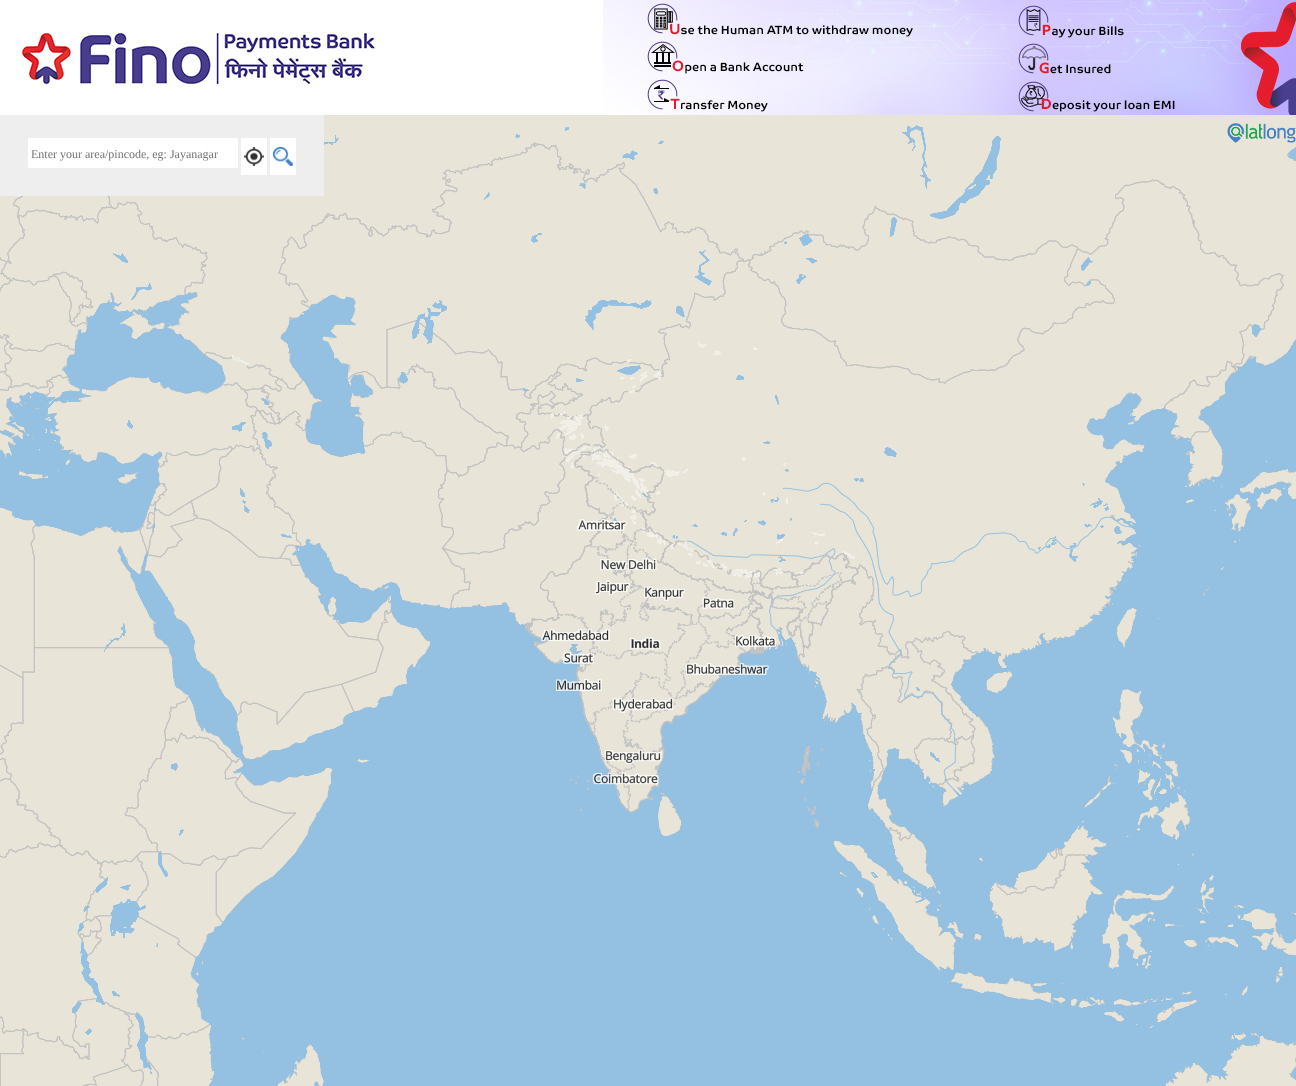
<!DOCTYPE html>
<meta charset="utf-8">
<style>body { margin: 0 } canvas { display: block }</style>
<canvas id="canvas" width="1296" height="1086"></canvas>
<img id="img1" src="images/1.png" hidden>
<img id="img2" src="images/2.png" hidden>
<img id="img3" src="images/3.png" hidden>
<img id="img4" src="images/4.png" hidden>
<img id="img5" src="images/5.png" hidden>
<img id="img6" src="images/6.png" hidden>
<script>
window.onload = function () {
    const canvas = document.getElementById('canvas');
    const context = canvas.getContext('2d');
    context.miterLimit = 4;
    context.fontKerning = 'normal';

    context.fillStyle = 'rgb(255, 255, 255)';
    context.fillRect(0, 0, 1296, 1086);
    context.drawImage(document.getElementById('img1'), 22, 33, 353, 52);
    context.drawImage(document.getElementById('img2'), 603, 0, 693, 115);
    context.drawImage(document.getElementById('img3'), 0, 115, 1296, 971);
    context.drawImage(document.getElementById('img4'), 1227, 123, 69, 20);
    context.fillStyle = 'rgb(238, 238, 238)';
    context.fillRect(0, 115, 324, 81);
    context.fillStyle = 'rgb(255, 255, 255)';
    context.fillRect(28, 138, 210, 30);
    context.fillRect(241, 138, 26, 37);
    context.drawImage(document.getElementById('img5'), 244, 147, 20, 19);
    context.fillRect(270, 138, 26, 37);
    context.drawImage(document.getElementById('img6'), 273, 147, 20, 19);
    context.font = '12px Liberation Serif';
    context.fillStyle = 'rgb(117, 117, 117)';
    context.fillText('Enter your area/pincode, eg: Jayanagar', 31, 158);
};
</script>
